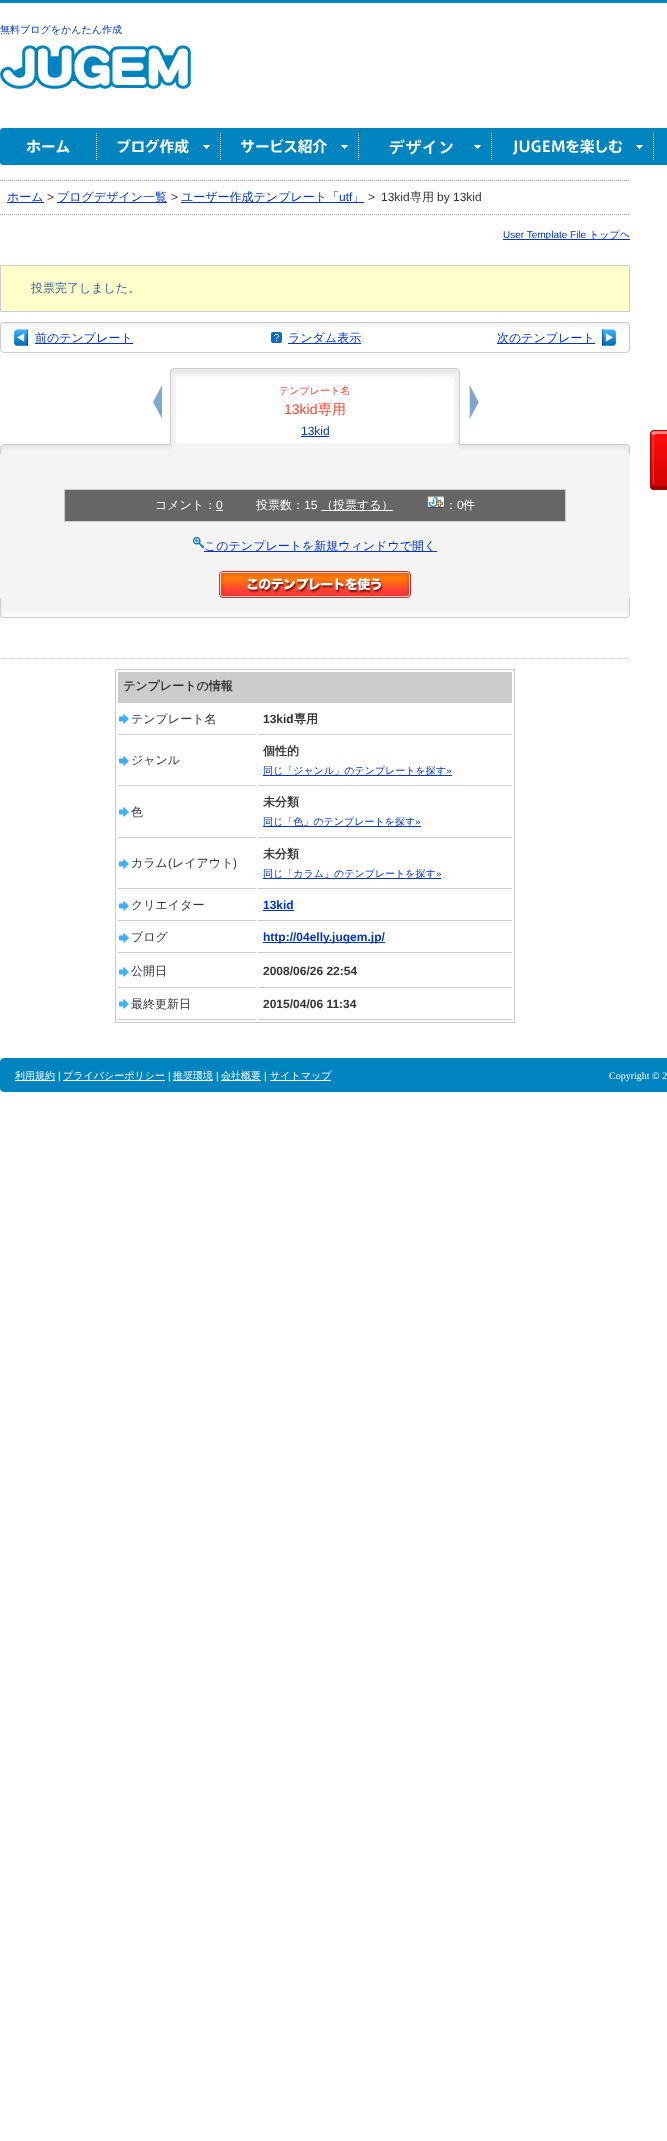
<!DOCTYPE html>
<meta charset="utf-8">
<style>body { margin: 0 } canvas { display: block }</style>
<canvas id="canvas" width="667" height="2141"></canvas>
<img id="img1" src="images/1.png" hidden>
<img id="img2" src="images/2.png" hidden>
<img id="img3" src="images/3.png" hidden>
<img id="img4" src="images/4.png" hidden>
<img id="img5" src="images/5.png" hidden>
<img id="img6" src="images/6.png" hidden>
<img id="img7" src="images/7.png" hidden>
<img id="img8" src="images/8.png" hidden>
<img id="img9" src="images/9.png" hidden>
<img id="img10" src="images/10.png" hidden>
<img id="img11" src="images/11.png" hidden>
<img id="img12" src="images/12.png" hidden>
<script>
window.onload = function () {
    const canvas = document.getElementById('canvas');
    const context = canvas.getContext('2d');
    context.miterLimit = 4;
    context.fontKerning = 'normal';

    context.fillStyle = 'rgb(255, 255, 255)';
    context.fillRect(0, 0, 667, 2141);
    context.fillStyle = 'rgb(0, 132, 192)';
    context.fillRect(0, 0, 667, 3);
    context.drawImage(document.getElementById('img1'), 0, 45, 191, 44);
    context.fillRect(654, 128, 13, 37);
    context.drawImage(document.getElementById('img2'), 0, 128, 654, 37);
    context.beginPath();
    context.moveTo(0, 180.5);
    context.lineTo(630, 180.5);
    context.strokeStyle = 'rgb(153, 153, 153)';
    context.setLineDash([1, 1]);
    context.stroke();
    context.beginPath();
    context.moveTo(0, 214.5);
    context.lineTo(630, 214.5);
    context.stroke();
    context.fillStyle = 'rgb(0, 51, 204)';
    context.fillRect(7, 202, 37, 1);
    context.fillRect(57, 202, 110, 1);
    context.fillRect(181, 202, 183, 1);
    context.fillRect(503, 239, 127, 1);
    context.fillStyle = 'rgb(255, 255, 204)';
    context.beginPath();
    context.rect(0.5, 265.5, 629, 46);
    context.fill();
    context.strokeStyle = 'rgb(204, 204, 204)';
    context.setLineDash([]);
    context.stroke();
    context.drawImage(document.getElementById('img3'), 0, 322, 630, 31);
    context.fillStyle = 'rgb(0, 51, 204)';
    context.fillRect(35, 343, 98, 1);
    context.drawImage(document.getElementById('img4'), 271, 332, 11, 11);
    context.fillRect(288, 343, 73, 1);
    context.fillRect(497, 343, 98, 1);
    context.drawImage(document.getElementById('img5'), 0, 368, 630, 86);
    context.fillRect(301, 436, 28, 1);
    context.fillStyle = 'rgb(244, 244, 244)';
    context.fillRect(0, 454, 630, 144);
    context.drawImage(document.getElementById('img6'), 0, 598, 630, 20);
    context.fillStyle = 'rgb(102, 102, 102)';
    context.beginPath();
    context.rect(64.5, 489.5, 501, 32);
    context.fill();
    context.stroke();
    context.fillStyle = 'rgb(255, 255, 255)';
    context.fillRect(216, 510, 7, 1);
    context.fillRect(321, 510, 72, 1);
    context.drawImage(document.getElementById('img7'), 427, 496, 18, 12);
    context.drawImage(document.getElementById('img8'), 193, 537, 11, 11);
    context.fillStyle = 'rgb(0, 51, 204)';
    context.fillRect(204, 551, 233, 1);
    context.drawImage(document.getElementById('img9'), 219, 571, 192, 27);
    context.beginPath();
    context.moveTo(0, 658.5);
    context.lineTo(630, 658.5);
    context.setLineDash([1, 1]);
    context.stroke();
    context.setLineDash([]);
    context.strokeRect(115.5, 669.5, 399, 353);
    context.fillStyle = 'rgb(204, 204, 204)';
    context.fillRect(118, 672, 394, 31);
    context.drawImage(document.getElementById('img10'), 119, 714, 10, 10);
    context.fillRect(118, 734, 138, 1);
    context.fillRect(258, 734, 254, 1);
    context.drawImage(document.getElementById('img10'), 119, 756, 10, 10);
    context.fillRect(118, 785, 138, 1);
    context.fillRect(258, 785, 254, 1);
    context.fillStyle = 'rgb(0, 51, 204)';
    context.fillRect(263, 775, 189, 1);
    context.drawImage(document.getElementById('img10'), 119, 807, 10, 10);
    context.fillStyle = 'rgb(204, 204, 204)';
    context.fillRect(118, 837, 138, 1);
    context.fillRect(258, 837, 254, 1);
    context.fillStyle = 'rgb(0, 51, 204)';
    context.fillRect(263, 826, 158, 1);
    context.drawImage(document.getElementById('img10'), 119, 859, 10, 10);
    context.fillStyle = 'rgb(204, 204, 204)';
    context.fillRect(118, 888, 138, 1);
    context.fillRect(258, 888, 254, 1);
    context.fillStyle = 'rgb(0, 51, 204)';
    context.fillRect(263, 878, 178, 1);
    context.drawImage(document.getElementById('img10'), 119, 901, 10, 10);
    context.fillStyle = 'rgb(204, 204, 204)';
    context.fillRect(118, 920, 138, 1);
    context.fillRect(258, 920, 254, 1);
    context.fillStyle = 'rgb(0, 51, 204)';
    context.fillRect(263, 910, 31, 1);
    context.drawImage(document.getElementById('img10'), 119, 933, 10, 10);
    context.fillStyle = 'rgb(204, 204, 204)';
    context.fillRect(118, 952, 138, 1);
    context.fillRect(258, 952, 254, 1);
    context.fillStyle = 'rgb(0, 51, 204)';
    context.fillRect(263, 942, 122, 1);
    context.drawImage(document.getElementById('img10'), 119, 967, 10, 10);
    context.fillStyle = 'rgb(204, 204, 204)';
    context.fillRect(118, 987, 138, 1);
    context.fillRect(258, 987, 254, 1);
    context.drawImage(document.getElementById('img10'), 119, 999, 10, 10);
    context.fillRect(118, 1019, 138, 1);
    context.fillRect(258, 1019, 254, 1);
    context.drawImage(document.getElementById('img11'), 650, 430, 17, 60);
    context.fillStyle = 'rgb(0, 132, 192)';
    context.fillRect(4, 1058, 663, 34);
    context.drawImage(document.getElementById('img12'), 0, 1058, 4, 34);
    context.fillStyle = 'rgb(255, 255, 255)';
    context.fillRect(15, 1080, 40, 1);
    context.fillRect(63, 1080, 102, 1);
    context.fillRect(173, 1080, 40, 1);
    context.fillRect(221, 1080, 40, 1);
    context.fillRect(270, 1080, 61, 1);
    context.font = '500 10px WenQuanYi Zen Hei';
    context.fillStyle = 'rgb(0, 51, 204)';
    context.fillText('無料ブログをかんたん作成', 0, 33);
    context.font = '500 12px WenQuanYi Zen Hei';
    context.fillText('ホーム', 7, 201);
    context.font = '12px Liberation Sans';
    context.fillStyle = 'rgb(51, 51, 51)';
    context.fillText('>', 47, 201);
    context.font = '500 12px WenQuanYi Zen Hei';
    context.fillStyle = 'rgb(0, 51, 204)';
    context.fillText('ブログデザイン一覧', 57, 201);
    context.font = '12px Liberation Sans';
    context.fillStyle = 'rgb(51, 51, 51)';
    context.fillText('>', 171, 201);
    context.font = '500 12px WenQuanYi Zen Hei';
    context.fillStyle = 'rgb(0, 51, 204)';
    context.fillText('ユーザー作成テンプレート「', 181, 201);
    context.font = '12px Liberation Sans';
    context.fillText('utf', 339, 201);
    context.font = '500 12px WenQuanYi Zen Hei';
    context.fillText('」', 352, 201);
    context.font = '12px Liberation Sans';
    context.fillStyle = 'rgb(51, 51, 51)';
    context.fillText('>', 368, 201);
    context.fillText('13kid', 381, 201);
    context.font = '500 12px WenQuanYi Zen Hei';
    context.fillText('専用', 410, 201);
    context.font = '12px Liberation Sans';
    context.fillText('by 13kid', 437, 201);
    context.font = '10px Liberation Sans';
    context.fillStyle = 'rgb(0, 51, 204)';
    context.fillText('User Template File', 503, 238);
    context.font = '500 10px WenQuanYi Zen Hei';
    context.fillText('トップヘ', 589, 238);
    context.font = '500 12px WenQuanYi Zen Hei';
    context.fillStyle = 'rgb(51, 102, 153)';
    context.fillText('投票完了しました。', 31, 292);
    context.fillStyle = 'rgb(0, 51, 204)';
    context.fillText('前のテンプレート', 35, 342);
    context.fillText('ランダム表示', 288, 342);
    context.fillText('次のテンプレート', 497, 342);
    context.font = '500 10px WenQuanYi Zen Hei';
    context.fillStyle = 'rgb(255, 67, 50)';
    context.fillText('テンプレート名', 279, 394);
    context.font = '14px Liberation Sans';
    context.fillText('13kid', 284, 414);
    context.font = '500 14px WenQuanYi Zen Hei';
    context.fillText('専用', 318, 414);
    context.font = '12px Liberation Sans';
    context.fillStyle = 'rgb(0, 51, 204)';
    context.fillText('13kid', 301, 435);
    context.font = '500 12px WenQuanYi Zen Hei';
    context.fillStyle = 'rgb(255, 255, 255)';
    context.fillText('コメント：', 155, 509);
    context.font = '12px Liberation Sans';
    context.fillText('0', 216, 509);
    context.font = '500 12px WenQuanYi Zen Hei';
    context.fillText('投票数：', 256, 509);
    context.font = '12px Liberation Sans';
    context.fillText('15', 304, 509);
    context.font = '500 12px WenQuanYi Zen Hei';
    context.fillText('（投票する）', 321, 509);
    context.fillText('：', 445, 509);
    context.font = '12px Liberation Sans';
    context.fillText('0', 457, 509);
    context.font = '500 12px WenQuanYi Zen Hei';
    context.fillText('件', 463, 509);
    context.fillStyle = 'rgb(0, 51, 204)';
    context.fillText('このテンプレートを新規ウィンドウで開く', 204, 550);
    context.font = 'bold 12px WenQuanYi Zen Hei';
    context.fillStyle = 'rgb(51, 51, 51)';
    context.fillText('テンプレートの情報', 123, 690);
    context.font = '500 12px WenQuanYi Zen Hei';
    context.fillText('テンプレート名', 131, 723);
    context.font = 'bold 12px Liberation Sans';
    context.fillText('13kid', 263, 723);
    context.font = 'bold 12px WenQuanYi Zen Hei';
    context.fillText('専用', 294, 723);
    context.font = '500 12px WenQuanYi Zen Hei';
    context.fillText('ジャンル', 131, 764);
    context.font = 'bold 12px WenQuanYi Zen Hei';
    context.fillText('個性的', 263, 755);
    context.font = '500 10px WenQuanYi Zen Hei';
    context.fillStyle = 'rgb(0, 51, 204)';
    context.fillText('同じ「ジャンル」のテンプレートを探す', 263, 774);
    context.font = '10px Liberation Sans';
    context.fillText('»', 446, 774);
    context.font = '500 12px WenQuanYi Zen Hei';
    context.fillStyle = 'rgb(51, 51, 51)';
    context.fillText('色', 131, 816);
    context.font = 'bold 12px WenQuanYi Zen Hei';
    context.fillText('未分類', 263, 806);
    context.font = '500 10px WenQuanYi Zen Hei';
    context.fillStyle = 'rgb(0, 51, 204)';
    context.fillText('同じ「色」のテンプレートを探す', 263, 825);
    context.font = '10px Liberation Sans';
    context.fillText('»', 415, 825);
    context.font = '500 12px WenQuanYi Zen Hei';
    context.fillStyle = 'rgb(51, 51, 51)';
    context.fillText('カラム', 131, 867);
    context.font = '12px Liberation Sans';
    context.fillText('(', 168, 867);
    context.font = '500 12px WenQuanYi Zen Hei';
    context.fillText('レイアウト', 172, 867);
    context.font = '12px Liberation Sans';
    context.fillText(')', 233, 867);
    context.font = 'bold 12px WenQuanYi Zen Hei';
    context.fillText('未分類', 263, 858);
    context.font = '500 10px WenQuanYi Zen Hei';
    context.fillStyle = 'rgb(0, 51, 204)';
    context.fillText('同じ「カラム」のテンプレートを探す', 263, 877);
    context.font = '10px Liberation Sans';
    context.fillText('»', 436, 877);
    context.font = '500 12px WenQuanYi Zen Hei';
    context.fillStyle = 'rgb(51, 51, 51)';
    context.fillText('クリエイター', 131, 909);
    context.font = 'bold 12px Liberation Sans';
    context.fillStyle = 'rgb(0, 51, 204)';
    context.fillText('13kid', 263, 909);
    context.font = '500 12px WenQuanYi Zen Hei';
    context.fillStyle = 'rgb(51, 51, 51)';
    context.fillText('ブログ', 131, 941);
    context.font = 'bold 12px Liberation Sans';
    context.fillStyle = 'rgb(0, 51, 204)';
    context.fillText('http://04elly.jugem.jp/', 263, 941);
    context.font = '500 12px WenQuanYi Zen Hei';
    context.fillStyle = 'rgb(51, 51, 51)';
    context.fillText('公開日', 131, 975);
    context.font = 'bold 12px Liberation Sans';
    context.fillText('2008/06/26 22:54', 263, 975);
    context.font = '500 12px WenQuanYi Zen Hei';
    context.fillText('最終更新日', 131, 1008);
    context.font = 'bold 12px Liberation Sans';
    context.fillText('2015/04/06 11:34', 263, 1008);
    context.font = '500 10px WenQuanYi Zen Hei';
    context.fillStyle = 'rgb(255, 255, 255)';
    context.fillText('利用規約', 15, 1079);
    context.font = '10px Liberation Sans';
    context.fillText('|', 58, 1079);
    context.font = '500 10px WenQuanYi Zen Hei';
    context.fillText('プライバシーポリシー', 63, 1079);
    context.font = '10px Liberation Sans';
    context.fillText('|', 168, 1079);
    context.font = '500 10px WenQuanYi Zen Hei';
    context.fillText('推奨環境', 173, 1079);
    context.font = '10px Liberation Sans';
    context.fillText('|', 216, 1079);
    context.font = '500 10px WenQuanYi Zen Hei';
    context.fillText('会社概要', 221, 1079);
    context.font = '10px Liberation Sans';
    context.fillText('|', 264, 1079);
    context.font = '500 10px WenQuanYi Zen Hei';
    context.fillText('サイトマップ', 270, 1079);
    context.font = '10px Liberation Serif';
    context.fillText('Copyright © 2', 609, 1079);
};
</script>
